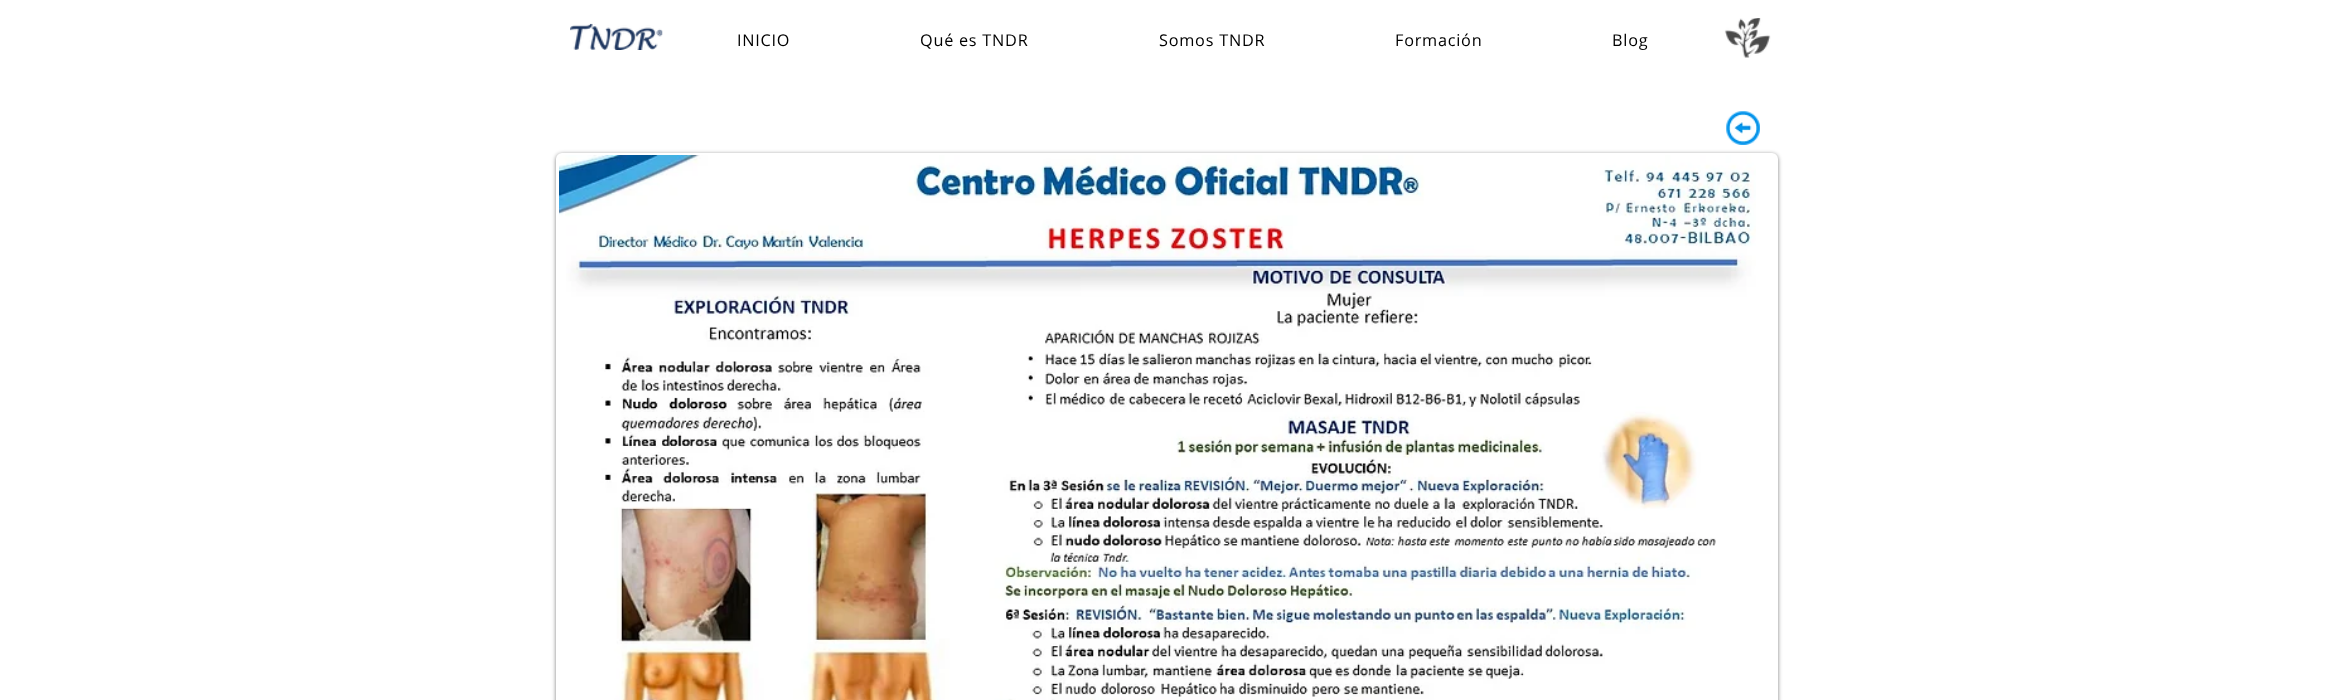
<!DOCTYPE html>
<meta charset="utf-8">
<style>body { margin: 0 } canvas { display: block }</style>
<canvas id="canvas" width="2344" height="700"></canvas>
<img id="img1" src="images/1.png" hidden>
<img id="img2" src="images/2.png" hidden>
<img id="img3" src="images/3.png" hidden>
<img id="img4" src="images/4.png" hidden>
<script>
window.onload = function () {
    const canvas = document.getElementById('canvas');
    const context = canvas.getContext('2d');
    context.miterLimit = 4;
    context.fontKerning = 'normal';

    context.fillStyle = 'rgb(255, 255, 255)';
    context.fillRect(0, 0, 2344, 700);
    context.drawImage(document.getElementById('img1'), 570, 23, 93, 27);
    context.drawImage(document.getElementById('img2'), 1724, 18, 47, 40);
    context.drawImage(document.getElementById('img3'), 1726, 111, 34, 34);
    context.fillStyle = 'rgba(0, 0, 0, 0.5)';
    context.filter = 'blur(2px)';
    context.beginPath();
    context.roundRect(556, 154, 1222, 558, 6);
    context.fill();
    context.filter = 'none';
    context.fillStyle = 'rgb(255, 255, 255)';
    context.beginPath();
    context.roundRect(557.5, 154.5, 1219, 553, 4.5);
    context.fill();
    context.strokeStyle = 'rgb(255, 255, 255)';
    context.lineWidth = 3;
    context.stroke();
    context.drawImage(document.getElementById('img4'), 559, 155, 1197, 545);
    context.letterSpacing = '0.75px';
    context.font = '16.25px Open Sans';
    context.fillStyle = 'rgb(0, 0, 0)';
    context.fillText('INICIO', 737, 46);
    context.fillText('Qué es TNDR', 920, 46);
    context.fillText('Somos TNDR', 1159, 46);
    context.fillText('Formación', 1395, 46);
    context.fillText('Blog', 1612, 46);
};
</script>
